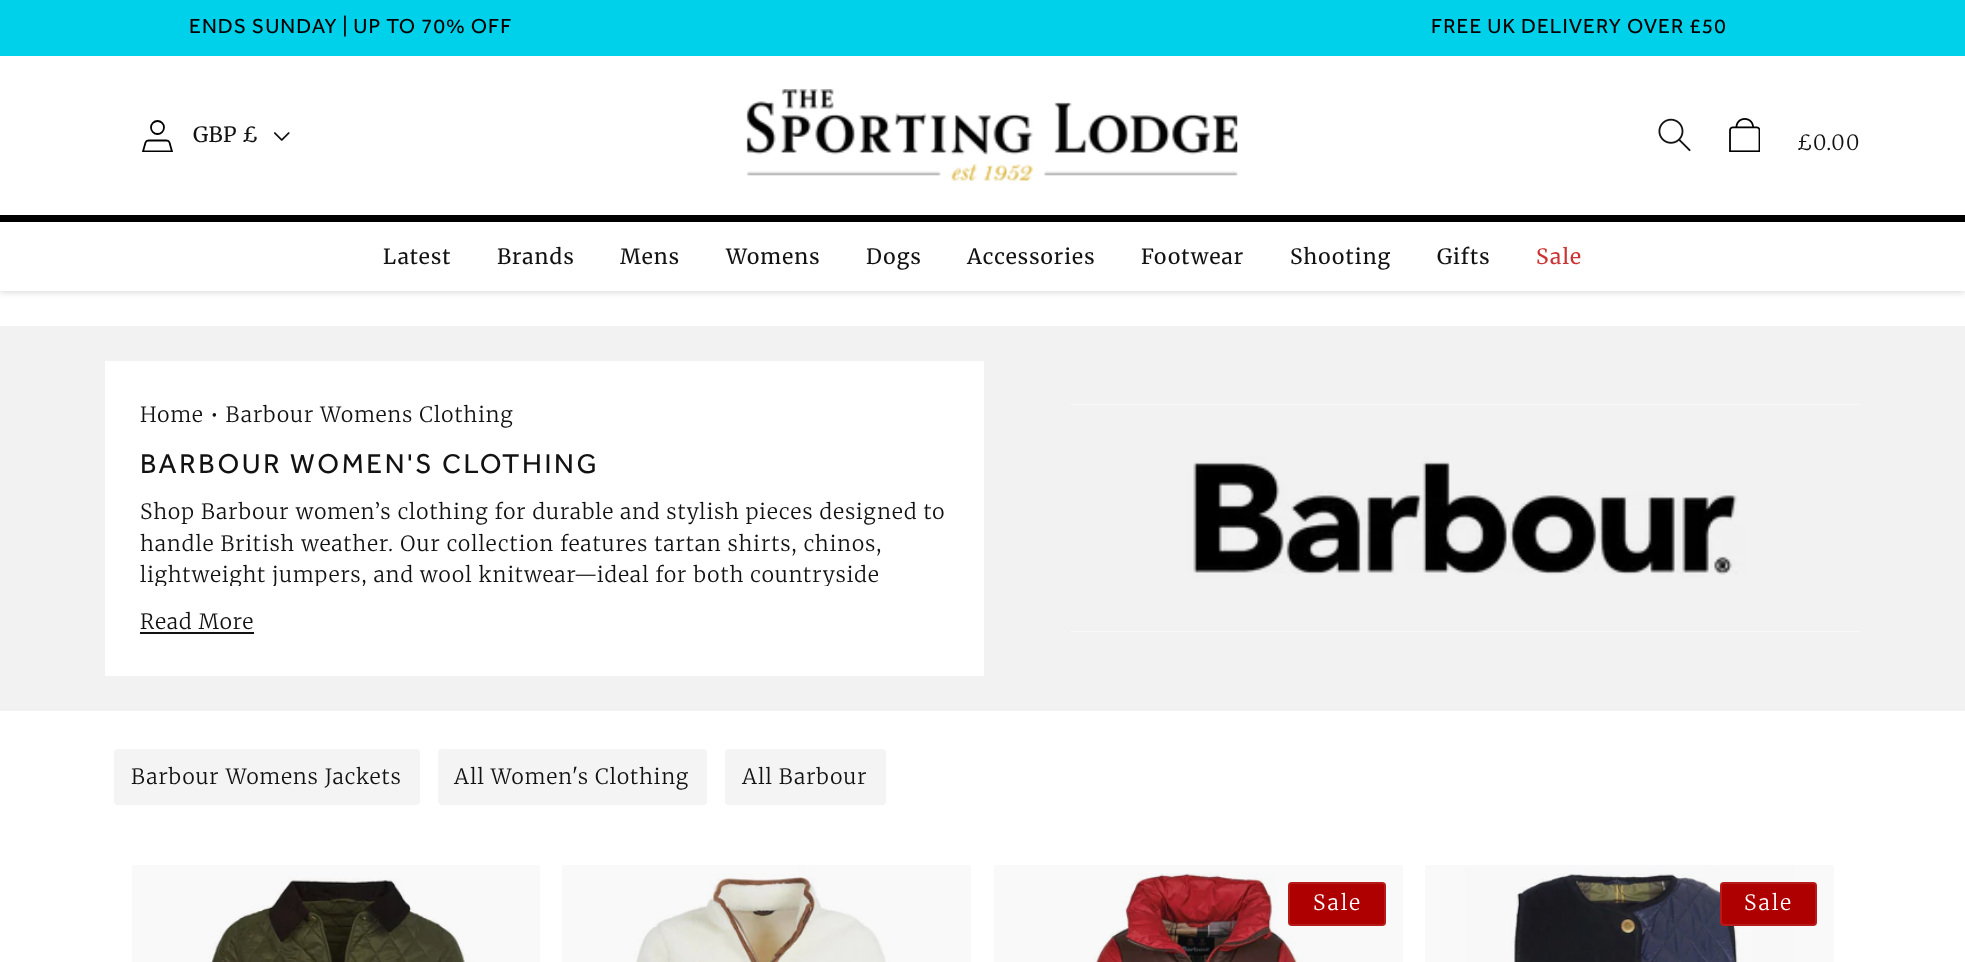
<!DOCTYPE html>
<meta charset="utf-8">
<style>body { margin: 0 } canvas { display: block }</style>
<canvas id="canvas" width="1965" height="962"></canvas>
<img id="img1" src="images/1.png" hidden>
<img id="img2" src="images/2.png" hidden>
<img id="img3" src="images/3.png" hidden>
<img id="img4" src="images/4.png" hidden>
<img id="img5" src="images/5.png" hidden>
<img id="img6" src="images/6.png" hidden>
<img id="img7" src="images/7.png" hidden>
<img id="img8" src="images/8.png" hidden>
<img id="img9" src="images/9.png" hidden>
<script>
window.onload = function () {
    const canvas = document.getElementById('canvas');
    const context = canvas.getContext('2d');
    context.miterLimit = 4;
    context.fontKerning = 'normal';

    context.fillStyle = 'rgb(255, 255, 255)';
    context.fillRect(0, 0, 1965, 962);
    context.fillStyle = 'rgba(0, 0, 0, 0.16)';
    context.filter = 'blur(3.5px)';
    context.beginPath();
    context.rect(0, 58, 1965, 234);
    context.fill();
    context.filter = 'none';
    context.fillStyle = 'rgb(0, 209, 234)';
    context.fillRect(0, 0, 1965, 56);
    context.fillStyle = 'rgb(255, 255, 255)';
    context.fillRect(0, 56, 1965, 235);
    context.save();
    context.beginPath();
    context.rect(140, 117, 35, 35);
    context.clip();
    context.beginPath();
    context.moveTo(148.5, 140.5);
    context.lineTo(166.5, 140.5);
    context.bezierCurveTo(168, 140.5, 169, 141, 169.5, 142.5);
    context.lineTo(172, 151.5);
    context.lineTo(143, 151.5);
    context.lineTo(145.5, 142.5);
    context.bezierCurveTo(146, 141, 147, 140.5, 148.5, 140.5);
    context.closePath();
    context.strokeStyle = 'rgb(0, 0, 0)';
    context.lineWidth = 1.8;
    context.stroke();
    context.restore();
    context.beginPath();
    context.arc(157.5, 127.5, 6.5, 0, 2 * Math.PI);
    context.strokeStyle = 'rgb(0, 0, 0)';
    context.lineWidth = 1.8;
    context.stroke();
    context.drawImage(document.getElementById('img1'), 274, 132, 16, 9);
    context.drawImage(document.getElementById('img2'), 746, 89, 492, 92);
    context.drawImage(document.getElementById('img3'), 1658, 118, 33, 34);
    context.drawImage(document.getElementById('img4'), 1729, 118, 31, 34);
    context.fillStyle = 'rgb(0, 0, 0)';
    context.fillRect(0, 215, 1965, 7);
    context.fillStyle = 'rgb(242, 242, 242)';
    context.fillRect(0, 326, 1965, 385);
    context.fillStyle = 'rgb(255, 255, 255)';
    context.fillRect(105, 361, 879, 315);
    context.fillStyle = 'rgb(18, 18, 18)';
    context.fillRect(140, 632, 114, 2);
    context.fillStyle = 'rgb(255, 255, 255)';
    context.fillRect(1071, 404, 789, 228);
    context.drawImage(document.getElementById('img5'), 1071, 404, 789, 228);
    context.fillStyle = 'rgb(244, 244, 244)';
    context.beginPath();
    context.roundRect(114, 749, 306, 56, 4);
    context.fill();
    context.beginPath();
    context.roundRect(438, 749, 269, 56, 4);
    context.fill();
    context.beginPath();
    context.roundRect(725, 749, 161, 56, 4);
    context.fill();
    context.drawImage(document.getElementById('img6'), 132, 865, 408, 97);
    context.drawImage(document.getElementById('img7'), 562, 865, 409, 97);
    context.drawImage(document.getElementById('img8'), 994, 865, 409, 97);
    context.fillStyle = 'rgb(174, 0, 0)';
    context.beginPath();
    context.roundRect(1288, 882, 98, 44, 4);
    context.fill();
    context.beginPath();
    context.roundRect(1289, 883, 96, 42, 3);
    context.strokeStyle = 'rgba(255, 255, 255, 0.1)';
    context.lineWidth = 2;
    context.stroke();
    context.drawImage(document.getElementById('img9'), 1425, 865, 409, 97);
    context.beginPath();
    context.roundRect(1720, 882, 97, 44, 4);
    context.fill();
    context.beginPath();
    context.roundRect(1721, 883, 95, 42, 3);
    context.stroke();
    context.letterSpacing = '1.05px';
    context.font = '21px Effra';
    context.fillStyle = 'rgb(0, 0, 0)';
    context.fillText('ENDS SUNDAY | UP TO 70% OFF', 189, 33);
    context.fillText('FREE UK DELIVERY OVER £50', 1431, 33);
    context.letterSpacing = '0.5px';
    context.font = '21px Merriweather';
    context.fillStyle = 'rgb(18, 18, 18)';
    context.fillText('GBP £', 193, 142);
    context.letterSpacing = '1.05px';
    context.font = '300 21px Merriweather';
    context.fillText('£0.00', 1797, 150);
    context.font = '21px Merriweather';
    context.fillText('Latest', 383, 264);
    context.fillText('Brands', 497, 264);
    context.fillText('Mens', 620, 264);
    context.fillText('Womens', 726, 264);
    context.fillText('Dogs', 866, 264);
    context.fillText('Accessories', 967, 264);
    context.fillText('Footwear', 1141, 264);
    context.fillText('Shooting', 1290, 264);
    context.fillText('Gifts', 1437, 264);
    context.fillStyle = 'rgb(204, 51, 51)';
    context.fillText('Sale', 1536, 264);
    context.font = '300 21px Merriweather';
    context.fillStyle = 'rgb(18, 18, 18)';
    context.fillText('Home • Barbour Womens Clothing', 140, 422);
    context.letterSpacing = '2.6px';
    context.font = '28px Effra';
    context.fillText('BARBOUR WOMEN\'S CLOTHING', 140, 473);
    context.letterSpacing = '1.05px';
    context.font = '300 21px Merriweather';
    context.fillText('Shop Barbour women’s clothing for durable and stylish pieces designed to', 140, 519);
    context.fillText('handle British weather. Our collection features tartan shirts, chinos,', 140, 551);
    context.save();
    context.beginPath();
    context.rect(140, 497, 809, 89);
    context.clip();
    context.fillText('lightweight jumpers, and wool knitwear—ideal for both countryside', 140, 582);
    context.restore();
    context.fillText('Read More', 140, 629);
    context.fillText('Barbour Womens Jackets', 131, 784);
    context.fillText('All Women\'s Clothing', 454, 784);
    context.fillText('All Barbour', 742, 784);
    context.letterSpacing = '2px';
    context.fillStyle = 'rgb(255, 255, 255)';
    context.fillText('Sale', 1313, 910);
    context.fillText('Sale', 1744, 910);
};
</script>
